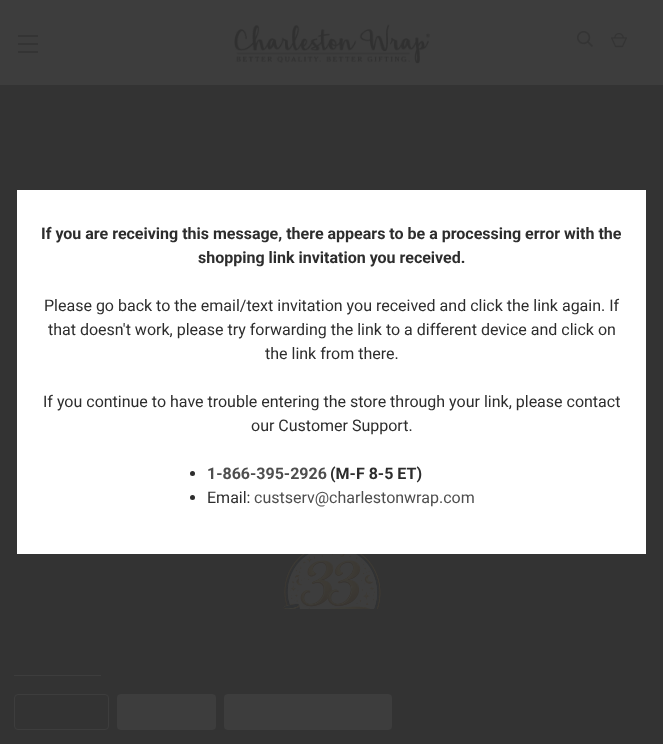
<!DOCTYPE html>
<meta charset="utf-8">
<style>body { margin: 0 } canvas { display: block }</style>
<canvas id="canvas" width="663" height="744"></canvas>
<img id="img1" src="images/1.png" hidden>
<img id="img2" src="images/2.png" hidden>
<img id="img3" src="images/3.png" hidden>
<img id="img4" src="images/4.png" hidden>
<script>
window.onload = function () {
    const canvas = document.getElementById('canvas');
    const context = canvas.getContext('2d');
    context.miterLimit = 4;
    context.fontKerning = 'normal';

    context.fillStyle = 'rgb(51, 51, 51)';
    context.fillRect(0, 0, 663, 744);
    context.fillStyle = 'rgb(61, 61, 61)';
    context.fillRect(0, 0, 663, 85);
    context.drawImage(document.getElementById('img1'), 234, 24, 196, 40);
    context.drawImage(document.getElementById('img2'), 577, 31, 16, 16);
    context.drawImage(document.getElementById('img3'), 611, 33, 16, 15);
    context.fillStyle = 'rgb(52, 52, 52)';
    context.fillRect(18, 43, 20, 2);
    context.fillRect(18, 35, 20, 2);
    context.fillRect(18, 51, 20, 2);
    context.fillStyle = 'rgb(255, 255, 255)';
    context.fillRect(17, 190, 629, 364);
    context.fillStyle = 'rgb(45, 45, 45)';
    context.beginPath();
    context.arc(192.5, 473.5, 2.5, 0, 2 * Math.PI);
    context.fill();
    context.beginPath();
    context.arc(192.5, 497.5, 2.5, 0, 2 * Math.PI);
    context.fill();
    context.drawImage(document.getElementById('img4'), 283, 554, 98, 55);
    context.fillStyle = 'rgb(61, 61, 61)';
    context.fillRect(14, 675, 87, 1);
    context.beginPath();
    context.roundRect(14.5, 694.5, 94, 35, 3.5);
    context.strokeStyle = 'rgb(61, 61, 61)';
    context.stroke();
    context.beginPath();
    context.roundRect(117, 694, 99, 36, 4);
    context.fill();
    context.beginPath();
    context.roundRect(224, 694, 168, 36, 4);
    context.fill();
    context.font = 'bold 16px Roboto';
    context.fillStyle = 'rgb(45, 45, 45)';
    context.fillText('If you are receiving this message, there appears to be a processing error with the', 41, 239);
    context.fillText('shopping link invitation you received.', 198, 263);
    context.font = '16px Roboto';
    context.fillText('Please go back to the email/text invitation you received and click the link again. If', 44, 311);
    context.fillText('that doesn\'t work, please try forwarding the link to a different device and click on', 48, 335);
    context.fillText('the link from there.', 265, 359);
    context.fillText('If you continue to have trouble entering the store through your link, please contact', 43, 407);
    context.fillText('our Customer Support.', 251, 431);
    context.font = 'bold 16px Roboto';
    context.fillStyle = 'rgb(78, 78, 78)';
    context.fillText('1-866-395-2926', 207, 479);
    context.fillStyle = 'rgb(45, 45, 45)';
    context.fillText('(M-F 8-5 ET)', 330, 479);
    context.font = '16px Roboto';
    context.fillText('Email:', 207, 503);
    context.fillStyle = 'rgb(78, 78, 78)';
    context.fillText('custserv@charlestonwrap.com', 254, 503);
};
</script>
